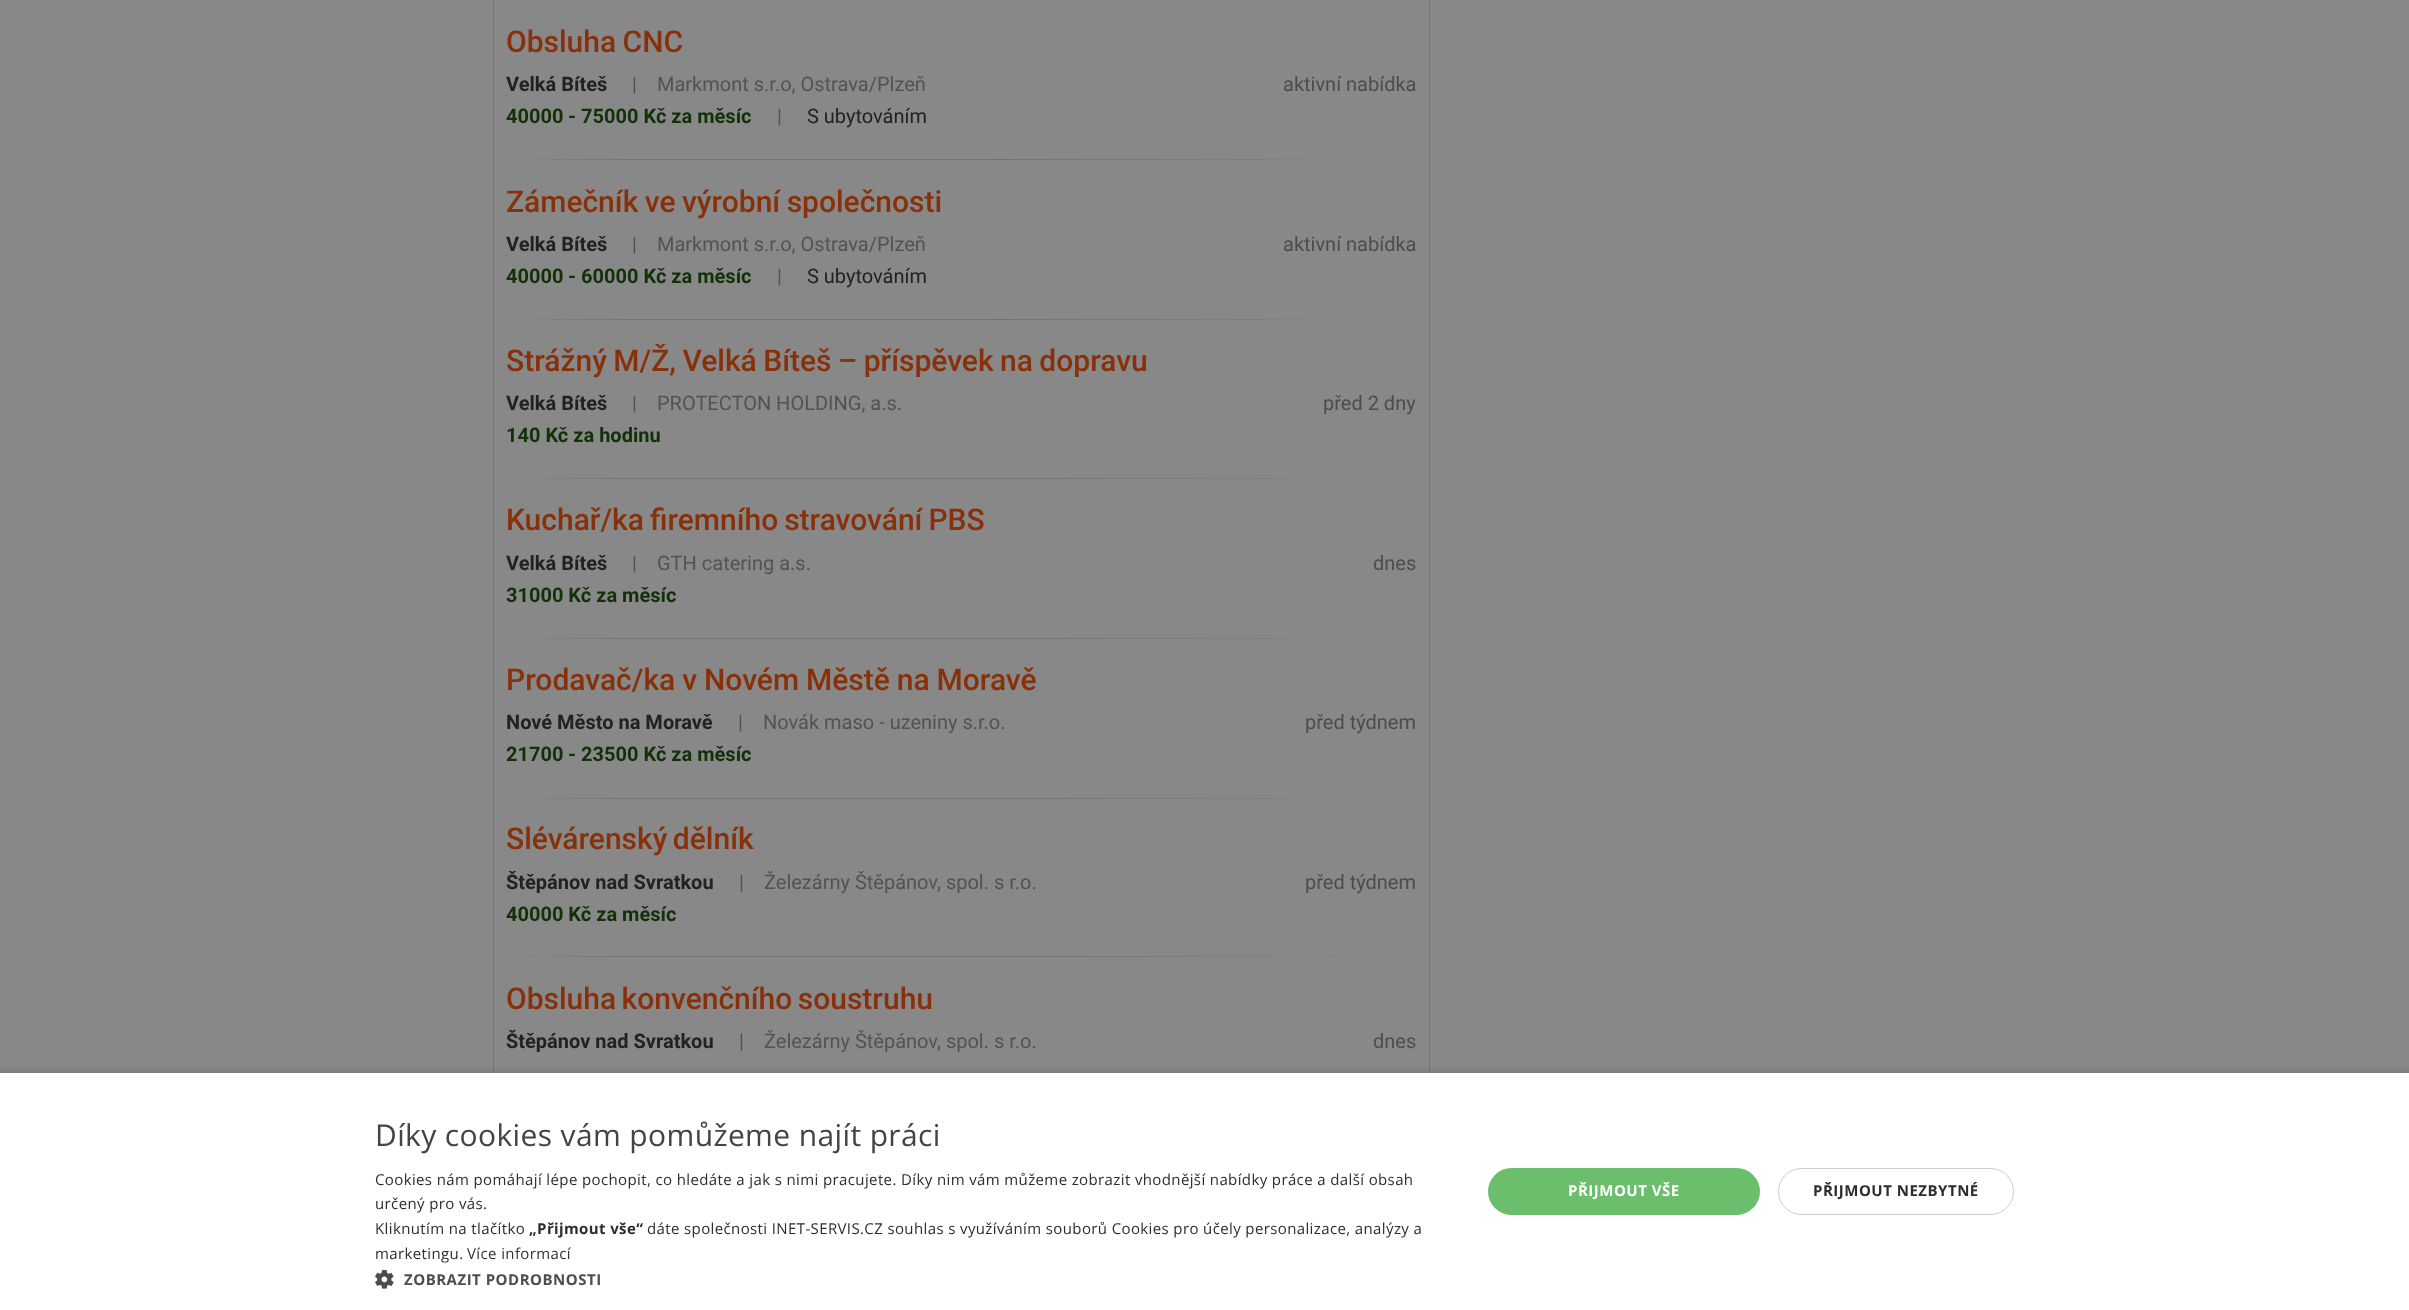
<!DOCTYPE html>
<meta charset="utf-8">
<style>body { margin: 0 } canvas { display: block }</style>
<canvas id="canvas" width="2409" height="1310"></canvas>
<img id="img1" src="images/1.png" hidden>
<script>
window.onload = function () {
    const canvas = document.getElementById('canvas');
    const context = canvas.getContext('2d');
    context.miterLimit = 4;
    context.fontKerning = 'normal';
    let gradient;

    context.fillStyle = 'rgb(136, 136, 136)';
    context.fillRect(0, 0, 2409, 1310);
    context.strokeStyle = 'rgb(119, 119, 119)';
    context.strokeRect(493.5, -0.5, 936, 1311);
    gradient = context.createLinearGradient(506, 159, 1416, 159);
    gradient.addColorStop(0, 'rgb(136, 136, 136)');
    gradient.addColorStop(0.15, 'rgb(114, 114, 114)');
    gradient.addColorStop(0.5, 'rgb(114, 114, 114)');
    gradient.addColorStop(1, 'rgb(136, 136, 136)');
    context.fillStyle = gradient;
    context.fillRect(522, 159, 842, 1);
    gradient = context.createLinearGradient(506, 319, 1416, 319);
    gradient.addColorStop(0, 'rgb(136, 136, 136)');
    gradient.addColorStop(0.15, 'rgb(114, 114, 114)');
    gradient.addColorStop(0.5, 'rgb(114, 114, 114)');
    gradient.addColorStop(1, 'rgb(136, 136, 136)');
    context.fillStyle = gradient;
    context.fillRect(522, 319, 842, 1);
    gradient = context.createLinearGradient(506, 478, 1416, 478);
    gradient.addColorStop(0, 'rgb(136, 136, 136)');
    gradient.addColorStop(0.15, 'rgb(114, 114, 114)');
    gradient.addColorStop(0.5, 'rgb(114, 114, 114)');
    gradient.addColorStop(1, 'rgb(136, 136, 136)');
    context.fillStyle = gradient;
    context.fillRect(522, 478, 842, 1);
    gradient = context.createLinearGradient(506, 638, 1416, 638);
    gradient.addColorStop(0, 'rgb(136, 136, 136)');
    gradient.addColorStop(0.15, 'rgb(114, 114, 114)');
    gradient.addColorStop(0.5, 'rgb(114, 114, 114)');
    gradient.addColorStop(1, 'rgb(136, 136, 136)');
    context.fillStyle = gradient;
    context.fillRect(522, 638, 842, 1);
    gradient = context.createLinearGradient(506, 798, 1416, 798);
    gradient.addColorStop(0, 'rgb(136, 136, 136)');
    gradient.addColorStop(0.15, 'rgb(114, 114, 114)');
    gradient.addColorStop(0.5, 'rgb(114, 114, 114)');
    gradient.addColorStop(1, 'rgb(136, 136, 136)');
    context.fillStyle = gradient;
    context.fillRect(522, 798, 842, 1);
    gradient = context.createLinearGradient(506, 957, 1416, 957);
    gradient.addColorStop(0, 'rgb(136, 136, 136)');
    gradient.addColorStop(0.15, 'rgb(114, 114, 114)');
    gradient.addColorStop(0.5, 'rgb(114, 114, 114)');
    gradient.addColorStop(1, 'rgb(136, 136, 136)');
    context.fillStyle = gradient;
    context.fillRect(522, 956, 842, 1);
    context.fillStyle = 'rgba(0, 0, 0, 0.35)';
    context.filter = 'blur(5px)';
    context.beginPath();
    context.rect(1, 1075, 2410, 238);
    context.fill();
    context.filter = 'none';
    context.fillStyle = 'rgb(255, 255, 255)';
    context.fillRect(0, 1073, 2409, 237);
    context.drawImage(document.getElementById('img1'), 375, 1270, 19, 19);
    context.fillStyle = 'rgb(107, 190, 107)';
    context.beginPath();
    context.roundRect(1488, 1168, 272, 47, 23.5);
    context.fill();
    context.beginPath();
    context.roundRect(1778.5, 1168.5, 235, 46, 23);
    context.strokeStyle = 'rgb(204, 204, 204)';
    context.stroke();
    context.wordSpacing = '-1px';
    context.font = '500 30px Roboto';
    context.fillStyle = 'rgb(136, 48, 9)';
    context.fillText('Obsluha CNC', 506, 52);
    context.wordSpacing = '0px';
    context.font = 'bold 20px Roboto';
    context.fillStyle = 'rgb(34, 34, 34)';
    context.fillText('Velká Bíteš', 506, 91);
    context.font = '20px Roboto';
    context.fillStyle = 'rgb(83, 83, 83)';
    context.fillText('|', 632, 91);
    context.fillText('Markmont s.r.o, Ostrava/Plzeň', 657, 91);
    context.fillStyle = 'rgb(77, 77, 77)';
    context.fillText('aktivní nabídka', 1283, 91);
    context.font = 'bold 20px Roboto';
    context.fillStyle = 'rgb(19, 49, 9)';
    context.fillText('40000 - 75000 Kč za měsíc', 506, 123);
    context.font = '20px Roboto';
    context.fillStyle = 'rgb(83, 83, 83)';
    context.fillText('|', 777, 123);
    context.fillStyle = 'rgb(34, 34, 34)';
    context.fillText('S ubytováním', 807, 123);
    context.wordSpacing = '-1px';
    context.font = '500 30px Roboto';
    context.fillStyle = 'rgb(136, 48, 9)';
    context.fillText('Zámečník ve výrobní společnosti', 506, 212);
    context.wordSpacing = '0px';
    context.font = 'bold 20px Roboto';
    context.fillStyle = 'rgb(34, 34, 34)';
    context.fillText('Velká Bíteš', 506, 251);
    context.font = '20px Roboto';
    context.fillStyle = 'rgb(83, 83, 83)';
    context.fillText('|', 632, 251);
    context.fillText('Markmont s.r.o, Ostrava/Plzeň', 657, 251);
    context.fillStyle = 'rgb(77, 77, 77)';
    context.fillText('aktivní nabídka', 1283, 251);
    context.font = 'bold 20px Roboto';
    context.fillStyle = 'rgb(19, 49, 9)';
    context.fillText('40000 - 60000 Kč za měsíc', 506, 283);
    context.font = '20px Roboto';
    context.fillStyle = 'rgb(83, 83, 83)';
    context.fillText('|', 777, 283);
    context.fillStyle = 'rgb(34, 34, 34)';
    context.fillText('S ubytováním', 807, 283);
    context.wordSpacing = '-1px';
    context.font = '500 30px Roboto';
    context.fillStyle = 'rgb(136, 48, 9)';
    context.fillText('Strážný M/Ž, Velká Bíteš – příspěvek na dopravu', 506, 371);
    context.wordSpacing = '0px';
    context.font = 'bold 20px Roboto';
    context.fillStyle = 'rgb(34, 34, 34)';
    context.fillText('Velká Bíteš', 506, 410);
    context.font = '20px Roboto';
    context.fillStyle = 'rgb(83, 83, 83)';
    context.fillText('|', 632, 410);
    context.fillText('PROTECTON HOLDING, a.s.', 657, 410);
    context.fillStyle = 'rgb(77, 77, 77)';
    context.fillText('před 2 dny', 1323, 410);
    context.font = 'bold 20px Roboto';
    context.fillStyle = 'rgb(19, 49, 9)';
    context.fillText('140 Kč za hodinu', 506, 442);
    context.wordSpacing = '-1.5px';
    context.font = '500 30px Roboto';
    context.fillStyle = 'rgb(136, 48, 9)';
    context.fillText('Kuchař/ka firemního stravování PBS', 506, 530);
    context.wordSpacing = '0px';
    context.font = 'bold 20px Roboto';
    context.fillStyle = 'rgb(34, 34, 34)';
    context.fillText('Velká Bíteš', 506, 570);
    context.font = '20px Roboto';
    context.fillStyle = 'rgb(83, 83, 83)';
    context.fillText('|', 632, 570);
    context.fillText('GTH catering a.s.', 657, 570);
    context.fillStyle = 'rgb(77, 77, 77)';
    context.fillText('dnes', 1373, 570);
    context.font = 'bold 20px Roboto';
    context.fillStyle = 'rgb(19, 49, 9)';
    context.fillText('31000 Kč za měsíc', 506, 602);
    context.wordSpacing = '-0.5px';
    context.font = '500 30px Roboto';
    context.fillStyle = 'rgb(136, 48, 9)';
    context.fillText('Prodavač/ka v Novém Městě na Moravě', 506, 690);
    context.wordSpacing = '0px';
    context.font = 'bold 20px Roboto';
    context.fillStyle = 'rgb(34, 34, 34)';
    context.fillText('Nové Město na Moravě', 506, 729);
    context.font = '20px Roboto';
    context.fillStyle = 'rgb(83, 83, 83)';
    context.fillText('|', 738, 729);
    context.fillText('Novák maso - uzeniny s.r.o.', 763, 729);
    context.fillStyle = 'rgb(77, 77, 77)';
    context.fillText('před týdnem', 1305, 729);
    context.font = 'bold 20px Roboto';
    context.fillStyle = 'rgb(19, 49, 9)';
    context.fillText('21700 - 23500 Kč za měsíc', 506, 761);
    context.wordSpacing = '-2px';
    context.font = '500 30px Roboto';
    context.fillStyle = 'rgb(136, 48, 9)';
    context.fillText('Slévárenský dělník', 506, 849);
    context.wordSpacing = '0px';
    context.font = 'bold 20px Roboto';
    context.fillStyle = 'rgb(34, 34, 34)';
    context.fillText('Štěpánov nad Svratkou', 506, 889);
    context.font = '20px Roboto';
    context.fillStyle = 'rgb(83, 83, 83)';
    context.fillText('|', 739, 889);
    context.fillText('Železárny Štěpánov, spol. s r.o.', 764, 889);
    context.fillStyle = 'rgb(77, 77, 77)';
    context.fillText('před týdnem', 1305, 889);
    context.font = 'bold 20px Roboto';
    context.fillStyle = 'rgb(19, 49, 9)';
    context.fillText('40000 Kč za měsíc', 506, 921);
    context.wordSpacing = '-2px';
    context.font = '500 30px Roboto';
    context.fillStyle = 'rgb(136, 48, 9)';
    context.fillText('Obsluha konvenčního soustruhu', 506, 1009);
    context.wordSpacing = '0px';
    context.font = 'bold 20px Roboto';
    context.fillStyle = 'rgb(34, 34, 34)';
    context.fillText('Štěpánov nad Svratkou', 506, 1048);
    context.font = '20px Roboto';
    context.fillStyle = 'rgb(83, 83, 83)';
    context.fillText('|', 739, 1048);
    context.fillText('Železárny Štěpánov, spol. s r.o.', 764, 1048);
    context.fillStyle = 'rgb(77, 77, 77)';
    context.fillText('dnes', 1373, 1048);
    context.letterSpacing = '0.38px';
    context.font = '30px Open Sans';
    context.fillStyle = 'rgb(68, 68, 68)';
    context.fillText('Díky cookies vám pomůžeme najít práci', 375, 1146);
    context.font = '15px Open Sans';
    context.fillStyle = 'rgb(45, 45, 45)';
    context.fillText('Cookies nám pomáhají lépe pochopit, co hledáte a jak s nimi pracujete. Díky nim vám můžeme zobrazit vhodnější nabídky práce a další obsah', 375, 1185);
    context.fillText('určený pro vás.', 375, 1209);
    context.fillText('Kliknutím na tlačítko', 375, 1234);
    context.font = 'bold 15px Open Sans';
    context.fillText('„Přijmout vše“', 529, 1234);
    context.font = '15px Open Sans';
    context.fillText('dáte společnosti INET-SERVIS.CZ souhlas s využíváním souborů Cookies pro účely personalizace, analýzy a', 647, 1234);
    context.fillText('marketingu.', 375, 1259);
    context.fillStyle = 'rgb(51, 51, 51)';
    context.fillText('Více informací', 467, 1259);
    context.letterSpacing = '0.5px';
    context.font = 'bold 15px Open Sans';
    context.fillStyle = 'rgb(77, 77, 77)';
    context.fillText('ZOBRAZIT PODROBNOSTI', 404, 1285);
    context.fillStyle = 'rgb(255, 255, 255)';
    context.fillText('PŘIJMOUT VŠE', 1568, 1196);
    context.fillStyle = 'rgb(45, 45, 45)';
    context.fillText('PŘIJMOUT NEZBYTNÉ', 1813, 1196);
};
</script>
